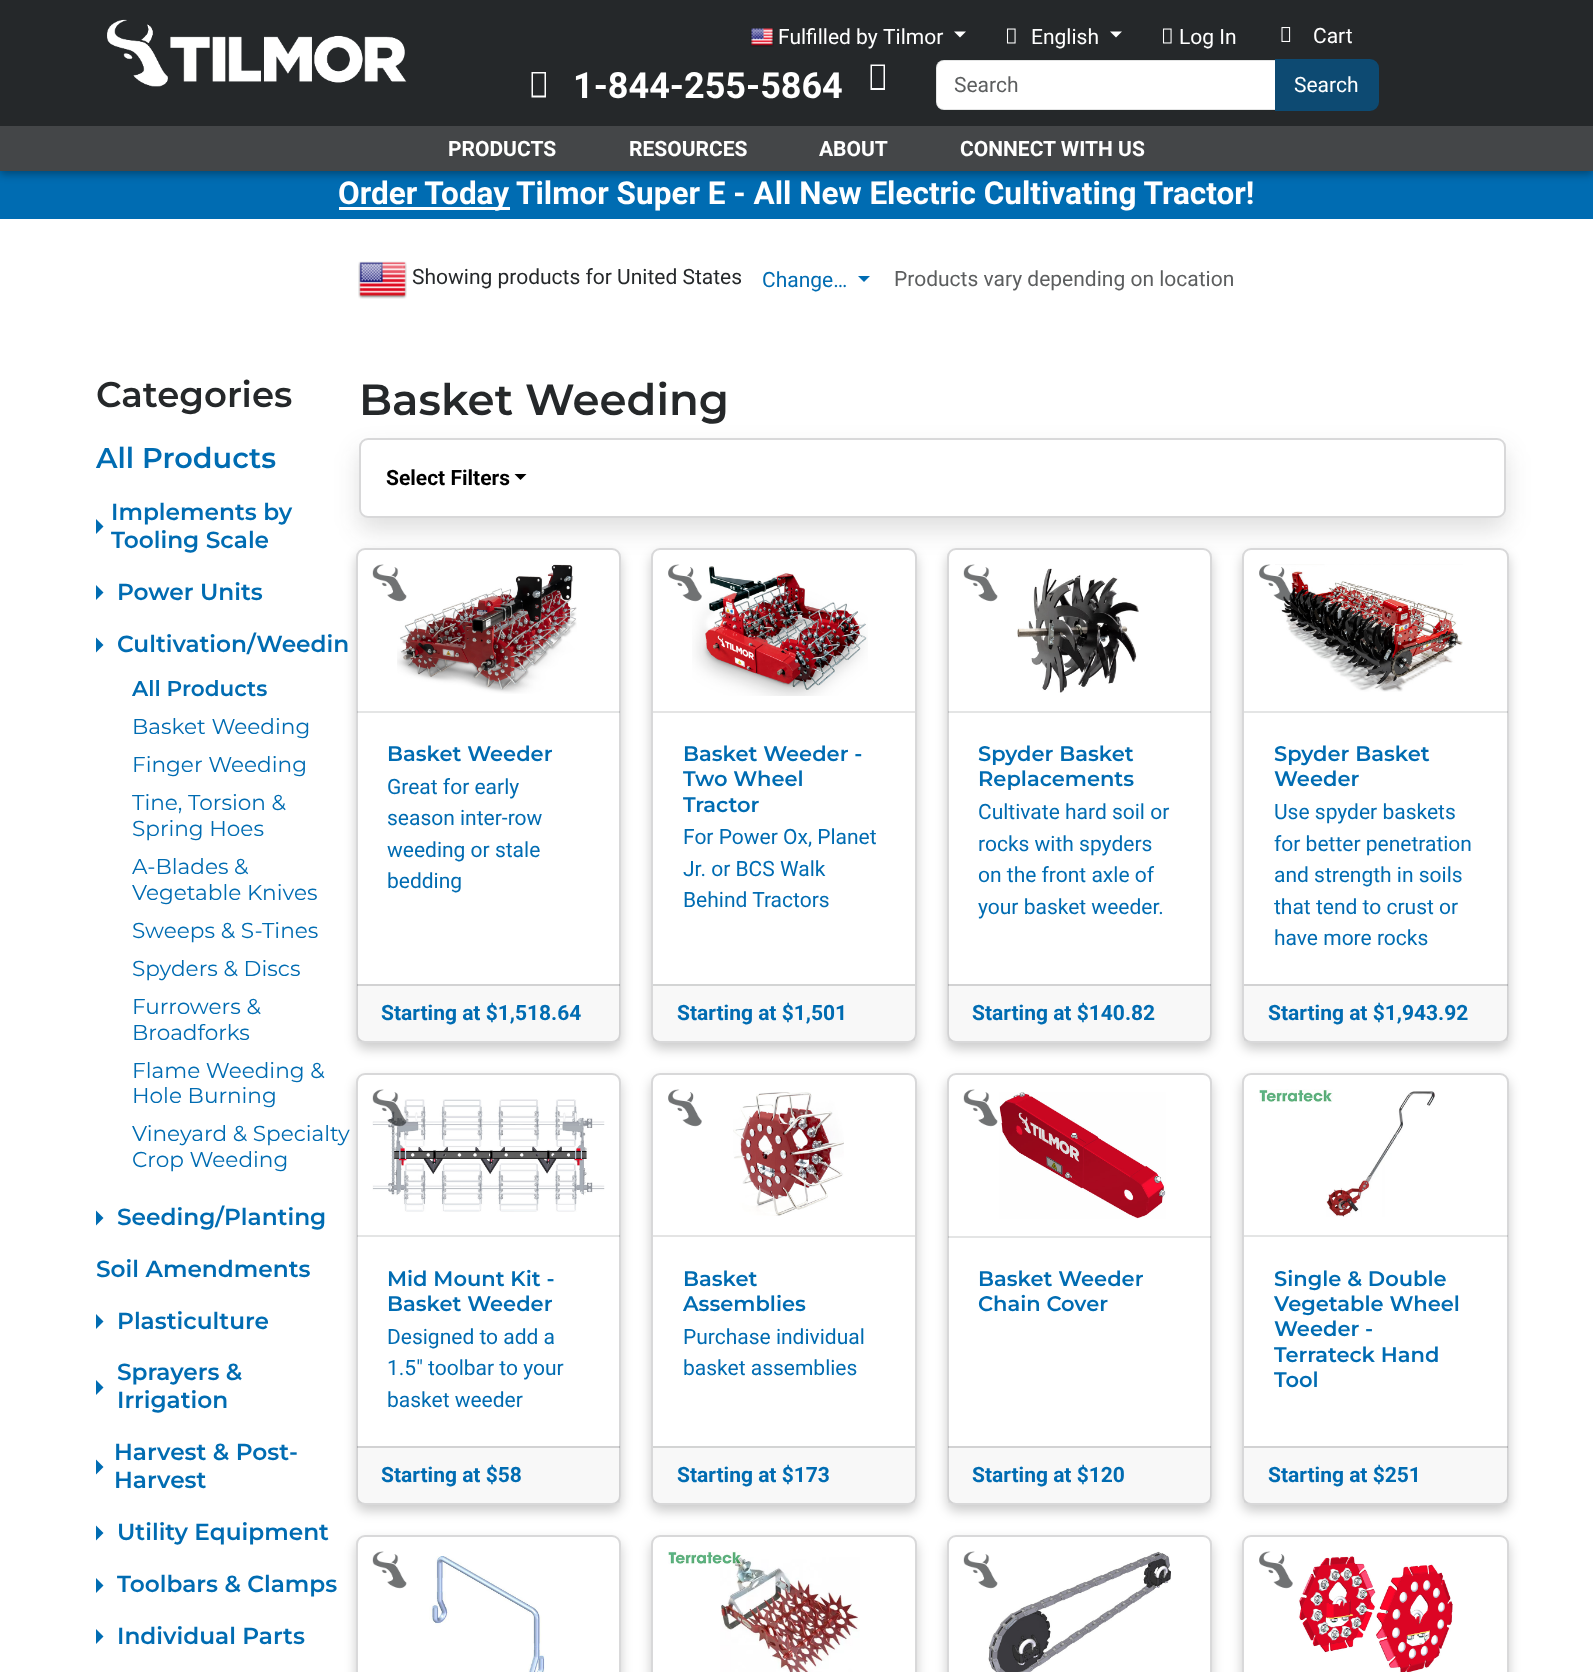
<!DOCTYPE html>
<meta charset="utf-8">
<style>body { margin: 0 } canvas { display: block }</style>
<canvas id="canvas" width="1593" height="1672"></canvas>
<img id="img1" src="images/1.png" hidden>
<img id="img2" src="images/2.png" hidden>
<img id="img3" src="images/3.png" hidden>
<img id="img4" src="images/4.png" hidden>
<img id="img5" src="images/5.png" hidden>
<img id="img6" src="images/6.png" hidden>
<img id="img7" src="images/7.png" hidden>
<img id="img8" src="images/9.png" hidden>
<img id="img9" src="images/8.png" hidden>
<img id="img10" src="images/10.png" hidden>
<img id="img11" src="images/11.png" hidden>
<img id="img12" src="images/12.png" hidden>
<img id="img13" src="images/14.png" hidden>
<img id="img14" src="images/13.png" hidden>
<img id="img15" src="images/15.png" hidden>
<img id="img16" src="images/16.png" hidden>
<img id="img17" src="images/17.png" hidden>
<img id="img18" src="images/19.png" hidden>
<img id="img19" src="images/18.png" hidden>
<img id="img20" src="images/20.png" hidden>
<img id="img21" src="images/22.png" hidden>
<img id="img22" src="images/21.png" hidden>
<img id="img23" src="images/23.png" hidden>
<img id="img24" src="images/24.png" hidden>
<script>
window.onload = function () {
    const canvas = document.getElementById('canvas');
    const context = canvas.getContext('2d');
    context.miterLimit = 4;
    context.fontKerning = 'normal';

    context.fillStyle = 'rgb(255, 255, 255)';
    context.fillRect(0, 0, 1593, 1672);
    context.fillStyle = 'rgb(0, 108, 178)';
    context.fillRect(0, 171, 1593, 48);
    context.fillStyle = 'rgba(0, 0, 0, 0.35)';
    context.filter = 'blur(4px)';
    context.beginPath();
    context.rect(0, 3, 1593, 171);
    context.fill();
    context.filter = 'none';
    context.fillStyle = 'rgb(37, 40, 42)';
    context.fillRect(0, 0, 1593, 126);
    context.drawImage(document.getElementById('img1'), 107, 19, 300, 68);
    context.drawImage(document.getElementById('img2'), 750, 28, 24, 19);
    context.fillStyle = 'rgb(255, 255, 255)';
    context.beginPath();
    context.moveTo(954, 31.5);
    context.lineTo(966, 31.5);
    context.lineTo(960, 37.5);
    context.closePath();
    context.fill();
    context.drawImage(document.getElementById('img3'), 1006, 28, 10, 16);
    context.beginPath();
    context.moveTo(1110, 31.5);
    context.lineTo(1122, 31.5);
    context.lineTo(1116, 37.5);
    context.closePath();
    context.fill();
    context.drawImage(document.getElementById('img3'), 1162, 28, 10, 16);
    context.drawImage(document.getElementById('img4'), 1281, 27, 10, 15);
    context.beginPath();
    context.moveTo(531.5, 97.5);
    context.lineTo(531.5, 72);
    context.lineTo(546, 72);
    context.lineTo(546, 97.5);
    context.closePath();
    context.moveTo(533, 95.5);
    context.lineTo(544.5, 95.5);
    context.lineTo(544.5, 73.5);
    context.lineTo(533, 73.5);
    context.closePath();
    context.fill();
    context.beginPath();
    context.moveTo(870.5, 90);
    context.lineTo(870.5, 64.5);
    context.lineTo(885, 64.5);
    context.lineTo(885, 90);
    context.closePath();
    context.moveTo(872, 88);
    context.lineTo(883.5, 88);
    context.lineTo(883.5, 66);
    context.lineTo(872, 66);
    context.closePath();
    context.fill();
    context.beginPath();
    context.roundRect(936, 60, 339, 50, [8, 0, 0, 8]);
    context.fill();
    context.beginPath();
    context.roundRect(936, 60, 340, 50, [8, 0, 0, 8]);
    context.strokeStyle = 'rgba(37, 40, 42, 0.12)';
    context.lineWidth = 2;
    context.stroke();
    context.fillStyle = 'rgb(13, 74, 114)';
    context.beginPath();
    context.roundRect(1276, 60, 102, 50, [0, 8, 8, 0]);
    context.fill();
    context.strokeStyle = 'rgb(13, 74, 114)';
    context.stroke();
    context.fillStyle = 'rgb(68, 70, 72)';
    context.fillRect(0, 126, 1593, 45);
    context.fillStyle = 'rgb(255, 255, 255)';
    context.fillRect(339, 207, 171, 3);
    context.drawImage(document.getElementById('img5'), 358, 261, 49, 38);
    context.fillStyle = 'rgb(0, 108, 178)';
    context.beginPath();
    context.moveTo(858, 276);
    context.lineTo(870, 276);
    context.lineTo(864, 282);
    context.closePath();
    context.fill();
    context.beginPath();
    context.moveTo(96, 534);
    context.lineTo(96, 519);
    context.lineTo(103.5, 526.5);
    context.closePath();
    context.fill();
    context.beginPath();
    context.moveTo(96, 600);
    context.lineTo(96, 585);
    context.lineTo(103.5, 592.5);
    context.closePath();
    context.fill();
    context.beginPath();
    context.moveTo(96, 652.5);
    context.lineTo(96, 637.5);
    context.lineTo(103.5, 645);
    context.closePath();
    context.fill();
    context.beginPath();
    context.moveTo(96, 1225.5);
    context.lineTo(96, 1210.5);
    context.lineTo(103.5, 1218);
    context.closePath();
    context.fill();
    context.beginPath();
    context.moveTo(96, 1329);
    context.lineTo(96, 1314);
    context.lineTo(103.5, 1321.5);
    context.closePath();
    context.fill();
    context.beginPath();
    context.moveTo(96, 1395);
    context.lineTo(96, 1380);
    context.lineTo(103.5, 1387.5);
    context.closePath();
    context.fill();
    context.beginPath();
    context.moveTo(96, 1474.5);
    context.lineTo(96, 1459.5);
    context.lineTo(103.5, 1467);
    context.closePath();
    context.fill();
    context.beginPath();
    context.moveTo(96, 1540.5);
    context.lineTo(96, 1525.5);
    context.lineTo(103.5, 1533);
    context.closePath();
    context.fill();
    context.beginPath();
    context.moveTo(96, 1593);
    context.lineTo(96, 1578);
    context.lineTo(103.5, 1585.5);
    context.closePath();
    context.fill();
    context.beginPath();
    context.moveTo(96, 1644);
    context.lineTo(96, 1629);
    context.lineTo(103.5, 1636.5);
    context.closePath();
    context.fill();
    context.fillStyle = 'rgba(37, 40, 42, 0.15)';
    context.filter = 'blur(12px)';
    context.beginPath();
    context.roundRect(359, 450, 1147, 80, 9);
    context.fill();
    context.filter = 'none';
    context.fillStyle = 'rgb(255, 255, 255)';
    context.beginPath();
    context.roundRect(359, 438, 1147, 80, 9);
    context.fill();
    context.beginPath();
    context.roundRect(360, 439, 1145, 78, 8);
    context.strokeStyle = 'rgba(37, 40, 42, 0.18)';
    context.stroke();
    context.fillStyle = 'rgb(0, 0, 0)';
    context.beginPath();
    context.moveTo(514.5, 474);
    context.lineTo(526.5, 474);
    context.lineTo(520.5, 480);
    context.closePath();
    context.fill();
    context.fillStyle = 'rgba(0, 0, 0, 0.2)';
    context.filter = 'blur(6px)';
    context.beginPath();
    context.roundRect(356, 554, 265, 495, 9);
    context.fill();
    context.filter = 'none';
    context.fillStyle = 'rgb(255, 255, 255)';
    context.beginPath();
    context.roundRect(356, 548, 265, 495, 9);
    context.fill();
    context.beginPath();
    context.roundRect(357, 549, 263, 493, 8);
    context.stroke();
    context.fillStyle = 'rgba(37, 40, 42, 0.12)';
    context.fillRect(357, 711, 263, 2);
    context.drawImage(document.getElementById('img6'), 397, 564, 180, 130);
    context.drawImage(document.getElementById('img7'), 372, 564, 35, 38);
    context.fillStyle = 'rgba(37, 40, 42, 0.03)';
    context.fillRect(357, 984, 263, 57);
    context.fillStyle = 'rgba(37, 40, 42, 0.18)';
    context.fillRect(357, 984, 263, 2);
    context.fillStyle = 'rgba(0, 0, 0, 0.2)';
    context.filter = 'blur(6px)';
    context.beginPath();
    context.roundRect(651, 554, 266, 495, 9);
    context.fill();
    context.filter = 'none';
    context.fillStyle = 'rgb(255, 255, 255)';
    context.beginPath();
    context.roundRect(651, 548, 266, 495, 9);
    context.fill();
    context.beginPath();
    context.roundRect(652, 549, 264, 493, 8);
    context.stroke();
    context.drawImage(document.getElementById('img8'), 692, 566, 176, 130);
    context.drawImage(document.getElementById('img9'), 668, 564, 34, 38);
    context.fillStyle = 'rgb(228, 228, 228)';
    context.fillRect(653, 711, 262, 2);
    context.fillStyle = 'rgba(37, 40, 42, 0.03)';
    context.fillRect(653, 986, 262, 55);
    context.fillStyle = 'rgb(211, 212, 212)';
    context.fillRect(653, 984, 262, 2);
    context.fillStyle = 'rgba(0, 0, 0, 0.2)';
    context.filter = 'blur(6px)';
    context.beginPath();
    context.roundRect(947, 554, 265, 495, 9);
    context.fill();
    context.filter = 'none';
    context.fillStyle = 'rgb(255, 255, 255)';
    context.beginPath();
    context.roundRect(947, 548, 265, 495, 9);
    context.fill();
    context.beginPath();
    context.roundRect(948, 549, 263, 493, 8);
    context.stroke();
    context.drawImage(document.getElementById('img7'), 963, 564, 35, 38);
    context.fillStyle = 'rgba(37, 40, 42, 0.12)';
    context.fillRect(948, 711, 263, 2);
    context.drawImage(document.getElementById('img10'), 1017, 568, 122, 125);
    context.fillStyle = 'rgba(37, 40, 42, 0.03)';
    context.fillRect(948, 984, 263, 57);
    context.fillStyle = 'rgba(37, 40, 42, 0.18)';
    context.fillRect(948, 984, 263, 2);
    context.fillStyle = 'rgba(0, 0, 0, 0.2)';
    context.filter = 'blur(6px)';
    context.beginPath();
    context.roundRect(1242, 554, 267, 495, 9);
    context.fill();
    context.filter = 'none';
    context.fillStyle = 'rgb(255, 255, 255)';
    context.beginPath();
    context.roundRect(1242, 548, 267, 495, 9);
    context.fill();
    context.beginPath();
    context.roundRect(1243, 549, 265, 493, 8);
    context.stroke();
    context.fillStyle = 'rgba(37, 40, 42, 0.12)';
    context.fillRect(1244, 711, 264, 2);
    context.drawImage(document.getElementById('img11'), 1275, 564, 188, 128);
    context.drawImage(document.getElementById('img12'), 1259, 564, 34, 37);
    context.fillStyle = 'rgba(37, 40, 42, 0.03)';
    context.fillRect(1244, 984, 264, 57);
    context.fillStyle = 'rgba(37, 40, 42, 0.18)';
    context.fillRect(1244, 984, 264, 2);
    context.fillStyle = 'rgba(0, 0, 0, 0.2)';
    context.filter = 'blur(6px)';
    context.beginPath();
    context.roundRect(356, 1079, 265, 432, 9);
    context.fill();
    context.filter = 'none';
    context.fillStyle = 'rgb(255, 255, 255)';
    context.beginPath();
    context.roundRect(356, 1073, 265, 432, 9);
    context.fill();
    context.beginPath();
    context.roundRect(357, 1074, 263, 430, 8);
    context.stroke();
    context.drawImage(document.getElementById('img13'), 372, 1099, 233, 113);
    context.drawImage(document.getElementById('img14'), 372, 1089, 35, 38);
    context.fillStyle = 'rgba(37, 40, 42, 0.12)';
    context.fillRect(357, 1235, 263, 2);
    context.fillStyle = 'rgba(37, 40, 42, 0.03)';
    context.fillRect(357, 1446, 263, 57);
    context.fillStyle = 'rgba(37, 40, 42, 0.18)';
    context.fillRect(357, 1446, 263, 2);
    context.fillStyle = 'rgba(0, 0, 0, 0.2)';
    context.filter = 'blur(6px)';
    context.beginPath();
    context.roundRect(651, 1079, 266, 432, 9);
    context.fill();
    context.filter = 'none';
    context.fillStyle = 'rgb(255, 255, 255)';
    context.beginPath();
    context.roundRect(651, 1073, 266, 432, 9);
    context.fill();
    context.beginPath();
    context.roundRect(652, 1074, 264, 430, 8);
    context.stroke();
    context.drawImage(document.getElementById('img15'), 668, 1089, 34, 38);
    context.fillStyle = 'rgb(228, 228, 228)';
    context.fillRect(653, 1235, 262, 2);
    context.drawImage(document.getElementById('img16'), 733, 1092, 111, 124);
    context.fillStyle = 'rgba(37, 40, 42, 0.03)';
    context.fillRect(653, 1448, 262, 55);
    context.fillStyle = 'rgb(211, 212, 212)';
    context.fillRect(653, 1446, 262, 2);
    context.fillStyle = 'rgba(0, 0, 0, 0.2)';
    context.filter = 'blur(6px)';
    context.beginPath();
    context.roundRect(947, 1079, 265, 432, 9);
    context.fill();
    context.filter = 'none';
    context.fillStyle = 'rgb(255, 255, 255)';
    context.beginPath();
    context.roundRect(947, 1073, 265, 432, 9);
    context.fill();
    context.beginPath();
    context.roundRect(948, 1074, 263, 430, 8);
    context.stroke();
    context.drawImage(document.getElementById('img7'), 963, 1089, 35, 38);
    context.fillStyle = 'rgba(37, 40, 42, 0.12)';
    context.fillRect(948, 1236, 263, 2);
    context.drawImage(document.getElementById('img17'), 999, 1092, 167, 127);
    context.fillStyle = 'rgba(37, 40, 42, 0.03)';
    context.fillRect(948, 1446, 263, 57);
    context.fillStyle = 'rgba(37, 40, 42, 0.18)';
    context.fillRect(948, 1446, 263, 2);
    context.fillStyle = 'rgba(0, 0, 0, 0.2)';
    context.filter = 'blur(6px)';
    context.beginPath();
    context.roundRect(1242, 1079, 267, 432, 9);
    context.fill();
    context.filter = 'none';
    context.fillStyle = 'rgb(255, 255, 255)';
    context.beginPath();
    context.roundRect(1242, 1073, 267, 432, 9);
    context.fill();
    context.beginPath();
    context.roundRect(1243, 1074, 265, 430, 8);
    context.stroke();
    context.drawImage(document.getElementById('img18'), 1326, 1091, 109, 126);
    context.drawImage(document.getElementById('img19'), 1259, 1089, 74, 13);
    context.fillStyle = 'rgba(37, 40, 42, 0.12)';
    context.fillRect(1244, 1235, 264, 2);
    context.fillStyle = 'rgba(37, 40, 42, 0.03)';
    context.fillRect(1244, 1446, 264, 57);
    context.fillStyle = 'rgba(37, 40, 42, 0.18)';
    context.fillRect(1244, 1446, 264, 2);
    context.fillStyle = 'rgba(0, 0, 0, 0.2)';
    context.filter = 'blur(6px)';
    context.beginPath();
    context.roundRect(356, 1541, 265, 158, 9);
    context.fill();
    context.filter = 'none';
    context.fillStyle = 'rgb(255, 255, 255)';
    context.beginPath();
    context.roundRect(357, 1536, 263, 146, 8);
    context.fill();
    context.strokeStyle = 'rgb(217, 217, 218)';
    context.stroke();
    context.drawImage(document.getElementById('img7'), 372, 1551, 35, 38);
    context.drawImage(document.getElementById('img20'), 429, 1556, 116, 116);
    context.fillStyle = 'rgba(0, 0, 0, 0.2)';
    context.filter = 'blur(6px)';
    context.beginPath();
    context.roundRect(651, 1541, 266, 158, 9);
    context.fill();
    context.filter = 'none';
    context.fillStyle = 'rgb(255, 255, 255)';
    context.beginPath();
    context.roundRect(651, 1535, 266, 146, 9);
    context.fill();
    context.beginPath();
    context.roundRect(652, 1536, 264, 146, 8);
    context.strokeStyle = 'rgba(37, 40, 42, 0.18)';
    context.stroke();
    context.drawImage(document.getElementById('img21'), 720, 1557, 140, 115);
    context.drawImage(document.getElementById('img22'), 668, 1551, 75, 14);
    context.fillStyle = 'rgba(0, 0, 0, 0.2)';
    context.filter = 'blur(6px)';
    context.beginPath();
    context.roundRect(947, 1541, 265, 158, 9);
    context.fill();
    context.filter = 'none';
    context.fillStyle = 'rgb(255, 255, 255)';
    context.beginPath();
    context.roundRect(948, 1536, 263, 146, 8);
    context.fill();
    context.strokeStyle = 'rgb(217, 217, 218)';
    context.stroke();
    context.drawImage(document.getElementById('img23'), 988, 1551, 183, 121);
    context.drawImage(document.getElementById('img7'), 963, 1551, 35, 38);
    context.fillStyle = 'rgba(0, 0, 0, 0.2)';
    context.filter = 'blur(6px)';
    context.beginPath();
    context.roundRect(1242, 1541, 267, 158, 9);
    context.fill();
    context.filter = 'none';
    context.fillStyle = 'rgb(255, 255, 255)';
    context.beginPath();
    context.roundRect(1243, 1536, 265, 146, 8);
    context.fill();
    context.stroke();
    context.drawImage(document.getElementById('img15'), 1259, 1551, 34, 38);
    context.drawImage(document.getElementById('img24'), 1298, 1556, 155, 116);
    context.font = '21px Roboto';
    context.fillText('Fulfilled by', 778, 44);
    context.fillText('Tilmor', 883, 44);
    context.fillText('English', 1031, 44);
    context.fillText('Log In', 1179, 44);
    context.fillText('Cart', 1313, 43);
    context.font = 'bold 36px Roboto';
    context.fillText('1-844-255-5864', 573, 98);
    context.font = '21px Roboto';
    context.fillStyle = 'rgb(92, 94, 95)';
    context.fillText('Search', 954, 92);
    context.fillStyle = 'rgb(255, 255, 255)';
    context.fillText('Search', 1294, 92);
    context.font = 'bold 21px Roboto';
    context.fillText('PRODUCTS', 448, 156);
    context.fillText('RESOURCES', 629, 156);
    context.fillText('ABOUT', 819, 156);
    context.fillText('CONNECT WITH US', 960, 156);
    context.font = 'bold 31.5px Roboto';
    context.fillText('Order Today', 338, 204);
    context.fillText('Tilmor Super E - All New Electric Cultivating Tractor!', 516, 204);
    context.font = '21px Roboto';
    context.fillStyle = 'rgb(37, 40, 42)';
    context.fillText('Showing products for United States', 412, 284);
    context.fillStyle = 'rgb(0, 108, 178)';
    context.fillText('Change…', 762, 287);
    context.fillStyle = 'rgb(92, 94, 95)';
    context.fillText('Products vary depending on location', 894, 286);
    context.font = '600 35.5px Montserrat';
    context.fillStyle = 'rgb(37, 40, 42)';
    context.fillText('Categories', 96, 407);
    context.font = '600 28.75px Montserrat';
    context.fillStyle = 'rgb(0, 108, 178)';
    context.fillText('All Products', 96, 468);
    context.font = '600 23.25px Montserrat';
    context.fillText('Implements by', 111, 520);
    context.fillText('Tooling Scale', 111, 548);
    context.fillText('Power Units', 117, 600);
    context.fillText('Cultivation/Weedin', 117, 652);
    context.font = '600 21.6px Montserrat';
    context.fillText('All Products', 132, 696);
    context.font = '21.6px Montserrat';
    context.fillText('Basket Weeding', 132, 734);
    context.fillText('Finger Weeding', 132, 772);
    context.fillText('Tine, Torsion &', 132, 810);
    context.fillText('Spring Hoes', 132, 836);
    context.fillText('A-Blades &', 132, 874);
    context.fillText('Vegetable Knives', 132, 900);
    context.fillText('Sweeps & S-Tines', 132, 938);
    context.fillText('Spyders & Discs', 132, 976);
    context.fillText('Furrowers &', 132, 1014);
    context.fillText('Broadforks', 132, 1040);
    context.fillText('Flame Weeding &', 132, 1078);
    context.fillText('Hole Burning', 132, 1103);
    context.fillText('Vineyard & Specialty', 132, 1141);
    context.fillText('Crop Weeding', 132, 1167);
    context.font = '600 23.25px Montserrat';
    context.fillText('Seeding/Planting', 117, 1225);
    context.fillText('Soil Amendments', 96, 1277);
    context.fillText('Plasticulture', 117, 1329);
    context.fillText('Sprayers &', 117, 1380);
    context.fillText('Irrigation', 117, 1408);
    context.fillText('Harvest & Post-', 114, 1460);
    context.fillText('Harvest', 114, 1488);
    context.fillText('Utility Equipment', 117, 1540);
    context.fillText('Toolbars & Clamps', 117, 1592);
    context.fillText('Individual Parts', 117, 1644);
    context.font = '600 43.5px Montserrat';
    context.fillStyle = 'rgb(37, 40, 42)';
    context.fillText('Basket Weeding', 359, 415);
    context.font = 'bold 21px Roboto';
    context.fillStyle = 'rgb(0, 0, 0)';
    context.fillText('Select Filters', 386, 485);
    context.font = '600 21px Montserrat';
    context.fillStyle = 'rgb(0, 108, 178)';
    context.fillText('Basket Weeder', 387, 761);
    context.font = '21px Roboto';
    context.fillText('Great for early', 387, 794);
    context.fillText('season inter-row', 387, 825);
    context.fillText('weeding or stale', 387, 857);
    context.fillText('bedding', 387, 888);
    context.font = 'bold 21px Roboto';
    context.fillText('Starting at $1,518.64', 381, 1020);
    context.font = '600 21px Montserrat';
    context.fillText('Basket Weeder -', 683, 761);
    context.fillText('Two Wheel', 683, 786);
    context.fillText('Tractor', 683, 812);
    context.font = '21px Roboto';
    context.fillText('For Power Ox, Planet', 683, 844);
    context.fillText('Jr. or BCS Walk', 683, 876);
    context.fillText('Behind Tractors', 683, 907);
    context.font = 'bold 21px Roboto';
    context.fillText('Starting at $1,501', 677, 1020);
    context.font = '600 21px Montserrat';
    context.fillText('Spyder Basket', 978, 761);
    context.fillText('Replacements', 978, 786);
    context.font = '21px Roboto';
    context.fillText('Cultivate hard soil or', 978, 819);
    context.fillText('rocks with spyders', 978, 851);
    context.fillText('on the front axle of', 978, 882);
    context.fillText('your basket weeder.', 978, 914);
    context.font = 'bold 21px Roboto';
    context.fillText('Starting at $140.82', 972, 1020);
    context.font = '600 21px Montserrat';
    context.fillText('Spyder Basket', 1274, 761);
    context.fillText('Weeder', 1274, 786);
    context.font = '21px Roboto';
    context.fillText('Use spyder baskets', 1274, 819);
    context.fillText('for better penetration', 1274, 851);
    context.fillText('and strength in soils', 1274, 882);
    context.fillText('that tend to crust or', 1274, 914);
    context.fillText('have more rocks', 1274, 945);
    context.font = 'bold 21px Roboto';
    context.fillText('Starting at $1,943.92', 1268, 1020);
    context.font = '600 21px Montserrat';
    context.fillText('Mid Mount Kit -', 387, 1286);
    context.fillText('Basket Weeder', 387, 1311);
    context.font = '21px Roboto';
    context.fillText('Designed to add a', 387, 1344);
    context.fillText('1.5" toolbar to your', 387, 1375);
    context.fillText('basket weeder', 387, 1407);
    context.font = 'bold 21px Roboto';
    context.fillText('Starting at $58', 381, 1482);
    context.font = '600 21px Montserrat';
    context.fillText('Basket', 683, 1286);
    context.fillText('Assemblies', 683, 1311);
    context.font = '21px Roboto';
    context.fillText('Purchase individual', 683, 1344);
    context.fillText('basket assemblies', 683, 1375);
    context.font = 'bold 21px Roboto';
    context.fillText('Starting at $173', 677, 1482);
    context.font = '600 21px Montserrat';
    context.fillText('Basket Weeder', 978, 1286);
    context.fillText('Chain Cover', 978, 1311);
    context.font = 'bold 21px Roboto';
    context.fillText('Starting at $120', 972, 1482);
    context.font = '600 21px Montserrat';
    context.fillText('Single & Double', 1274, 1286);
    context.fillText('Vegetable Wheel', 1274, 1311);
    context.fillText('Weeder -', 1274, 1336);
    context.fillText('Terrateck Hand', 1274, 1362);
    context.fillText('Tool', 1274, 1387);
    context.font = 'bold 21px Roboto';
    context.fillText('Starting at $251', 1268, 1482);
};
</script>
